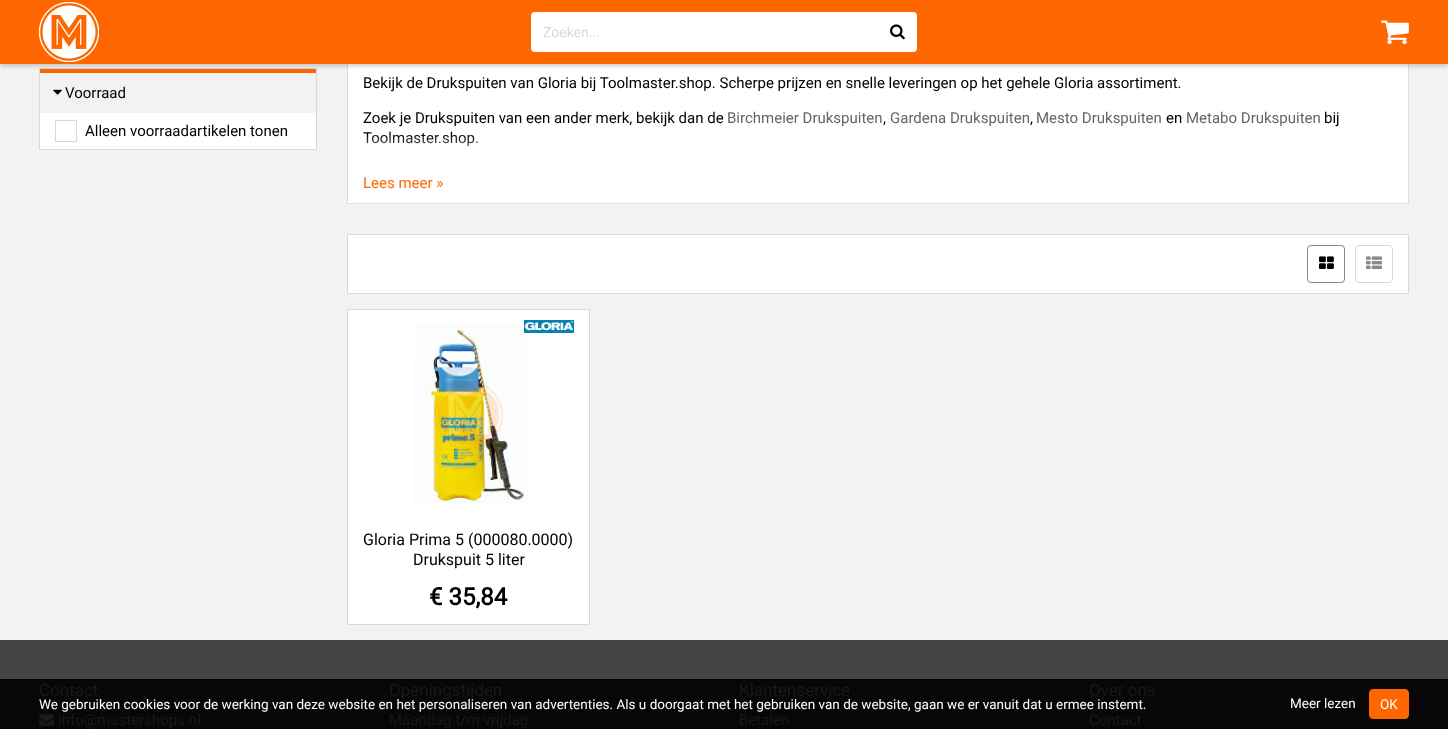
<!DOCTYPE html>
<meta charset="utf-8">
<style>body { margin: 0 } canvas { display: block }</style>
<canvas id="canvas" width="1448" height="729"></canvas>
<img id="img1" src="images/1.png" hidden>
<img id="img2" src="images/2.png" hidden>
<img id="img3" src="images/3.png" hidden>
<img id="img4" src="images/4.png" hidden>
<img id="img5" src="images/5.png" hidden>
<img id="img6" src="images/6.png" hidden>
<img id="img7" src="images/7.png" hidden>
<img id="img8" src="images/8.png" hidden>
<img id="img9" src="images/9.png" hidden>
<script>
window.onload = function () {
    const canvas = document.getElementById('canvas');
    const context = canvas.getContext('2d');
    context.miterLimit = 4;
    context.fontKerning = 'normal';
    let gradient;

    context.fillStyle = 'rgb(242, 242, 242)';
    context.fillRect(0, 0, 1448, 729);
    context.fillStyle = 'rgb(255, 255, 255)';
    context.fillRect(40, 113, 276, 36);
    context.strokeStyle = 'rgb(217, 217, 217)';
    context.strokeRect(39.5, 68.5, 277, 81);
    context.fillStyle = 'rgb(255, 102, 0)';
    context.fillRect(40, 69, 276, 4);
    context.fillStyle = 'rgb(255, 255, 255)';
    context.fillRect(348, 64, 1060, 139);
    context.strokeStyle = 'rgb(221, 221, 221)';
    context.strokeRect(347.5, 7.5, 1061, 196);
    context.fillStyle = 'rgba(0, 0, 0, 0.2)';
    context.filter = 'blur(2px)';
    context.beginPath();
    context.rect(0, 2, 1448, 64);
    context.fill();
    context.filter = 'none';
    context.fillStyle = 'rgb(255, 102, 0)';
    context.fillRect(0, 0, 1448, 64);
    context.drawImage(document.getElementById('img1'), 39, 2, 60, 60);
    context.fillStyle = 'rgb(255, 255, 255)';
    context.beginPath();
    context.roundRect(531, 12, 347, 40, [4, 0, 0, 4]);
    context.fill();
    context.beginPath();
    context.roundRect(877, 12, 40, 40, [0, 4, 4, 0]);
    context.fill();
    context.drawImage(document.getElementById('img2'), 890, 24, 15, 16);
    context.drawImage(document.getElementById('img3'), 1381, 20, 28, 25);
    context.drawImage(document.getElementById('img4'), 53, 89, 9, 6);
    context.strokeStyle = 'rgb(217, 217, 217)';
    context.strokeRect(55.5, 120.5, 21, 21);
    context.beginPath();
    context.rect(347.5, 234.5, 1061, 59);
    context.fill();
    context.stroke();
    context.beginPath();
    context.roundRect(1307.5, 245.5, 37, 37, 3.5);
    context.strokeStyle = 'rgb(136, 136, 136)';
    context.stroke();
    context.drawImage(document.getElementById('img5'), 1319, 256, 15, 13);
    context.beginPath();
    context.roundRect(1355.5, 245.5, 37, 37, 3.5);
    context.strokeStyle = 'rgb(217, 217, 217)';
    context.stroke();
    context.drawImage(document.getElementById('img6'), 1366, 256, 16, 13);
    context.beginPath();
    context.rect(347.5, 309.5, 242, 315);
    context.fill();
    context.stroke();
    context.drawImage(document.getElementById('img7'), 414, 325, 114, 178);
    context.drawImage(document.getElementById('img8'), 524, 320, 50, 13);
    context.fillStyle = 'rgb(69, 69, 69)';
    context.fillRect(0, 640, 1448, 39);
    context.fillStyle = 'rgb(7, 7, 7)';
    context.fillRect(0, 679, 1448, 50);
    context.drawImage(document.getElementById('img9'), 39, 714, 15, 13);
    context.fillStyle = 'rgb(255, 102, 0)';
    context.beginPath();
    context.roundRect(1369.5, 689.5, 39, 29, 3.5);
    context.fill();
    context.strokeStyle = 'rgb(255, 102, 0)';
    context.stroke();
    context.font = '14px Roboto';
    context.fillStyle = 'rgb(217, 217, 217)';
    context.fillText('Zoeken...', 543, 37);
    context.font = '15px Roboto';
    context.fillStyle = 'rgb(0, 0, 0)';
    context.fillText('Voorraad', 65, 98);
    context.fillText('Alleen voorraadartikelen tonen', 85, 136);
    context.fillText('Bekijk de Drukspuiten van Gloria bij Toolmaster.shop. Scherpe prijzen en snelle leveringen op het gehele Gloria assortiment.', 363, 88);
    context.fillText('Zoek je Drukspuiten van een ander merk, bekijk dan de', 363, 123);
    context.fillStyle = 'rgb(101, 101, 101)';
    context.fillText('Birchmeier Drukspuiten', 727, 123);
    context.fillStyle = 'rgb(0, 0, 0)';
    context.fillText(',', 883, 123);
    context.fillStyle = 'rgb(101, 101, 101)';
    context.fillText('Gardena Drukspuiten', 890, 123);
    context.fillStyle = 'rgb(0, 0, 0)';
    context.fillText(',', 1030, 123);
    context.fillStyle = 'rgb(101, 101, 101)';
    context.fillText('Mesto Drukspuiten', 1036, 123);
    context.fillStyle = 'rgb(0, 0, 0)';
    context.fillText('en', 1166, 123);
    context.fillStyle = 'rgb(101, 101, 101)';
    context.fillText('Metabo Drukspuiten', 1186, 123);
    context.fillStyle = 'rgb(0, 0, 0)';
    context.fillText('bij', 1324, 123);
    context.fillText('Toolmaster.shop.', 363, 143);
    gradient = context.createLinearGradient(878, 133, 878, 173);
    gradient.addColorStop(0, 'rgba(255, 255, 255, 0)');
    gradient.addColorStop(1, 'rgb(255, 255, 255)');
    context.fillStyle = gradient;
    context.fillRect(366, 134, 112, 13);
    context.fillStyle = 'rgb(255, 102, 0)';
    context.fillText('Lees meer »', 363, 188);
    context.font = '16px Roboto';
    context.fillStyle = 'rgb(0, 0, 0)';
    context.fillText('Gloria Prima 5 (000080.0000)', 363, 545);
    context.fillText('Drukspuit 5 liter', 413, 565);
    context.font = 'bold 24px Roboto';
    context.fillText('€ 35,84', 429, 605);
    context.font = '17px Roboto';
    context.fillStyle = 'rgb(25, 25, 25)';
    context.fillText('Contact', 39, 696);
    context.font = '15px Roboto';
    context.fillText('info@mastershops.nl', 58, 725);
    context.font = '17px Roboto';
    context.fillText('Openingstijden', 389, 696);
    context.font = '15px Roboto';
    context.fillText('Maandag t/m vrijdag', 389, 725);
    context.font = '17px Roboto';
    context.fillText('Klantenservice', 739, 696);
    context.font = '15px Roboto';
    context.fillText('Betalen', 739, 725);
    context.font = '17px Roboto';
    context.fillText('Over ons', 1089, 696);
    context.font = '15px Roboto';
    context.fillText('Contact', 1089, 725);
    context.font = '13.5px Roboto';
    context.fillStyle = 'rgb(255, 255, 255)';
    context.fillText('We gebruiken cookies voor de werking van deze website en het personaliseren van advertenties. Als u doorgaat met het gebruiken van de website, gaan we er vanuit dat u ermee instemt.', 39, 709);
    context.fillText('Meer lezen', 1290, 708);
    context.fillText('OK', 1380, 709);
};
</script>
